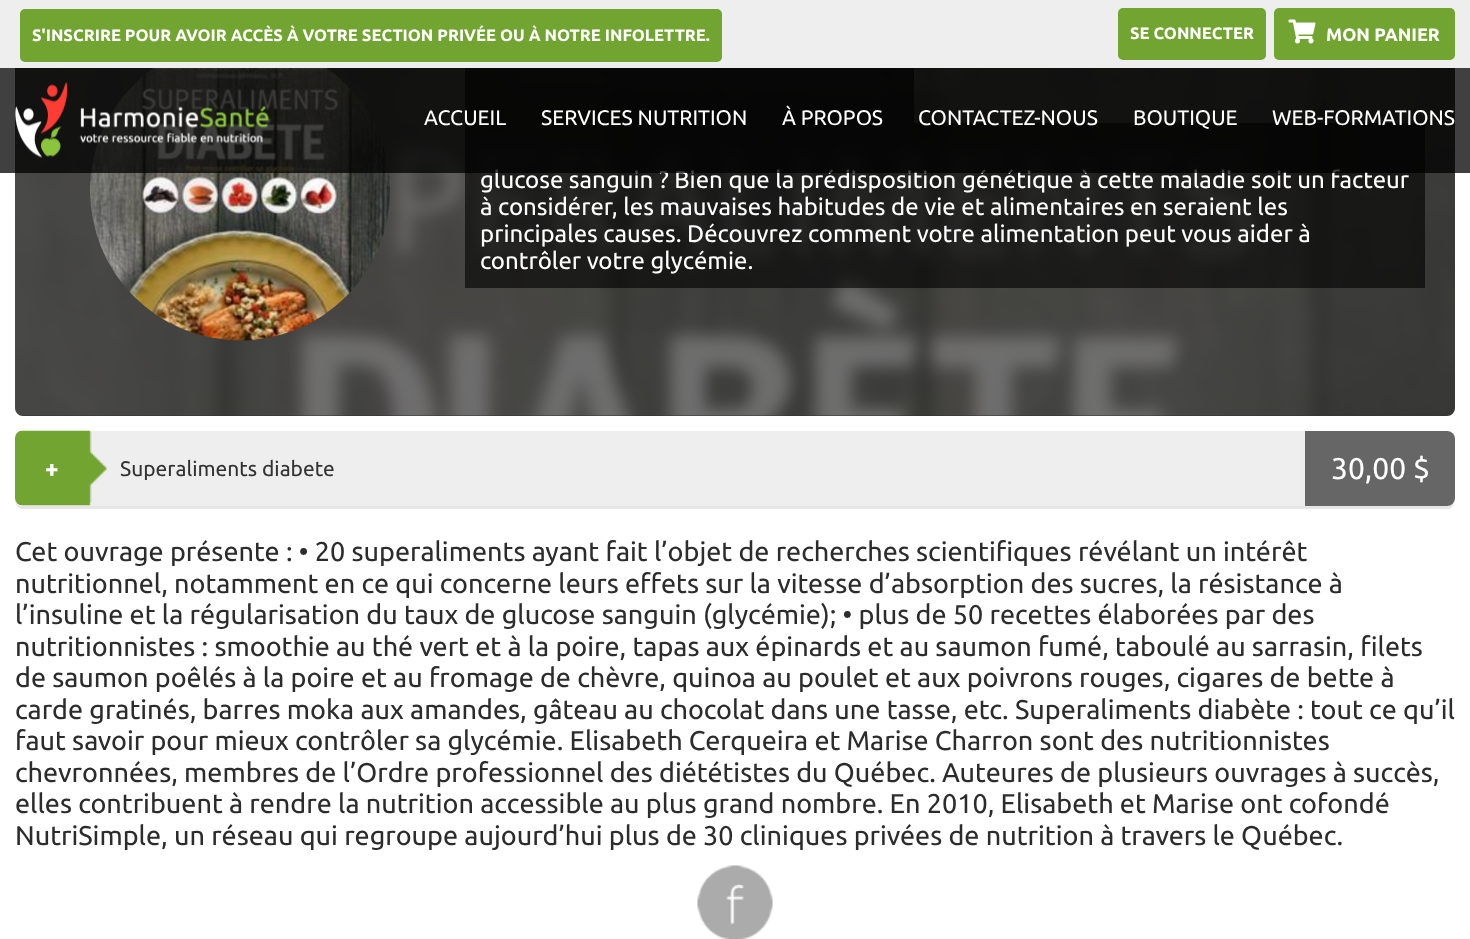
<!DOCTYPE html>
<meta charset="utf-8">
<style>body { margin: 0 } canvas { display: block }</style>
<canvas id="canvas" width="1470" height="939"></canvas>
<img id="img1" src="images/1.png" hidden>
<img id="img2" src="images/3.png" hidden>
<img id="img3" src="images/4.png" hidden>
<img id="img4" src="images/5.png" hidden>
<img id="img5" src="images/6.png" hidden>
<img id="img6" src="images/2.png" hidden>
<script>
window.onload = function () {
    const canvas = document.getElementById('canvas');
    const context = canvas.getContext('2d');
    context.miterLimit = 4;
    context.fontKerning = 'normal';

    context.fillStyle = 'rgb(255, 255, 255)';
    context.fillRect(0, 0, 1470, 939);
    context.fillStyle = 'rgb(51, 51, 51)';
    context.beginPath();
    context.roundRect(15, -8, 1440, 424, 8);
    context.fill();
    context.fillStyle = 'rgb(238, 238, 238)';
    context.fillRect(0, 0, 1470, 68);
    context.fillStyle = 'rgb(114, 164, 49)';
    context.beginPath();
    context.roundRect(20, 9, 702, 53, 5);
    context.fill();
    context.beginPath();
    context.roundRect(1118, 8, 148, 52, 5);
    context.fill();
    context.beginPath();
    context.roundRect(1274, 8, 181, 52, 5);
    context.fill();
    context.drawImage(document.getElementById('img1'), 1288, 19, 28, 25);
    context.drawImage(document.getElementById('img2'), 15, 68, 1440, 348);
    context.drawImage(document.getElementById('img3'), 90, 68, 300, 273);
    context.fillStyle = 'rgba(0, 0, 0, 0.6)';
    context.fillRect(465, 68, 449, 55);
    context.fillRect(465, 123, 960, 165);
    context.fillStyle = 'rgb(230, 230, 230)';
    context.beginPath();
    context.moveTo(15, 498);
    context.bezierCurveTo(15, 503, 17, 509, 23, 509);
    context.lineTo(1447, 509);
    context.bezierCurveTo(1453, 509, 1455, 503, 1455, 498);
    context.bezierCurveTo(1455, 502, 1452, 506, 1448, 506);
    context.lineTo(22, 506);
    context.bezierCurveTo(18, 506, 15, 502, 15, 498);
    context.closePath();
    context.fill();
    context.fillStyle = 'rgb(238, 238, 238)';
    context.beginPath();
    context.roundRect(15, 431, 1440, 75, 8);
    context.fill();
    context.drawImage(document.getElementById('img4'), 15, 430, 92, 76);
    context.fillStyle = 'rgb(102, 102, 102)';
    context.beginPath();
    context.roundRect(1305, 431, 150, 75, [0, 8, 8, 0]);
    context.fill();
    context.drawImage(document.getElementById('img5'), 697, 865, 76, 74);
    context.font = 'bold 16.5px Ubuntu';
    context.fillStyle = 'rgb(255, 255, 255)';
    context.fillText('S\'INSCRIRE POUR AVOIR ACCÈS À VOTRE SECTION PRIVÉE OU À NOTRE INFOLETTRE.', 32, 41);
    context.fillText('SE CONNECTER', 1130, 39);
    context.font = 'bold 18px Ubuntu';
    context.fillText('MON PANIER', 1326, 41);
    context.font = '24px Ubuntu';
    context.fillText('glucose sanguin ? Bien que la prédisposition génétique à cette maladie soit un facteur', 480, 188);
    context.fillStyle = 'rgba(0, 0, 0, 0.75)';
    context.fillRect(0, 68, 1470, 105);
    context.drawImage(document.getElementById('img6'), 15, 82, 254, 76);
    context.font = '21px Ubuntu';
    context.fillStyle = 'rgb(255, 255, 255)';
    context.fillText('WEB-FORMATIONS', 1272, 125);
    context.fillText('BOUTIQUE', 1133, 125);
    context.fillText('CONTACTEZ-NOUS', 918, 125);
    context.fillText('À PROPOS', 782, 125);
    context.fillText('SERVICES NUTRITION', 541, 125);
    context.fillText('ACCUEIL', 424, 125);
    context.font = '24px Ubuntu';
    context.fillText('à considérer, les mauvaises habitudes de vie et alimentaires en seraient les', 480, 215);
    context.fillText('principales causes. Découvrez comment votre alimentation peut vous aider à', 480, 242);
    context.fillText('contrôler votre glycémie.', 480, 269);
    context.font = 'bold 24px Ubuntu';
    context.fillText('+', 45, 477);
    context.font = '21px Ubuntu';
    context.fillStyle = 'rgb(51, 51, 51)';
    context.fillText('Superaliments diabete', 120, 476);
    context.font = '30px Ubuntu';
    context.fillStyle = 'rgb(255, 255, 255)';
    context.fillText('30,00 $', 1331, 479);
    context.font = '27px Ubuntu';
    context.fillStyle = 'rgb(44, 44, 44)';
    context.fillText('Cet ouvrage présente : • 20 superaliments ayant fait l’objet de recherches scientifiques révélant un intérêt', 15, 561);
    context.fillText('nutritionnel, notamment en ce qui concerne leurs effets sur la vitesse d’absorption des sucres, la résistance à', 15, 593);
    context.fillText('l’insuline et la régularisation du taux de glucose sanguin (glycémie); • plus de 50 recettes élaborées par des', 15, 624);
    context.fillText('nutritionnistes : smoothie au thé vert et à la poire, tapas aux épinards et au saumon fumé, taboulé au sarrasin, filets', 15, 656);
    context.fillText('de saumon poêlés à la poire et au fromage de chèvre, quinoa au poulet et aux poivrons rouges, cigares de bette à', 15, 687);
    context.fillText('carde gratinés, barres moka aux amandes, gâteau au chocolat dans une tasse, etc. Superaliments diabète : tout ce qu’il', 15, 719);
    context.fillText('faut savoir pour mieux contrôler sa glycémie. Elisabeth Cerqueira et Marise Charron sont des nutritionnistes', 15, 750);
    context.fillText('chevronnées, membres de l’Ordre professionnel des diététistes du Québec. Auteures de plusieurs ouvrages à succès,', 15, 782);
    context.fillText('elles contribuent à rendre la nutrition accessible au plus grand nombre. En 2010, Elisabeth et Marise ont cofondé', 15, 813);
    context.fillText('NutriSimple, un réseau qui regroupe aujourd’hui plus de 30 cliniques privées de nutrition à travers le Québec.', 15, 845);
};
</script>
